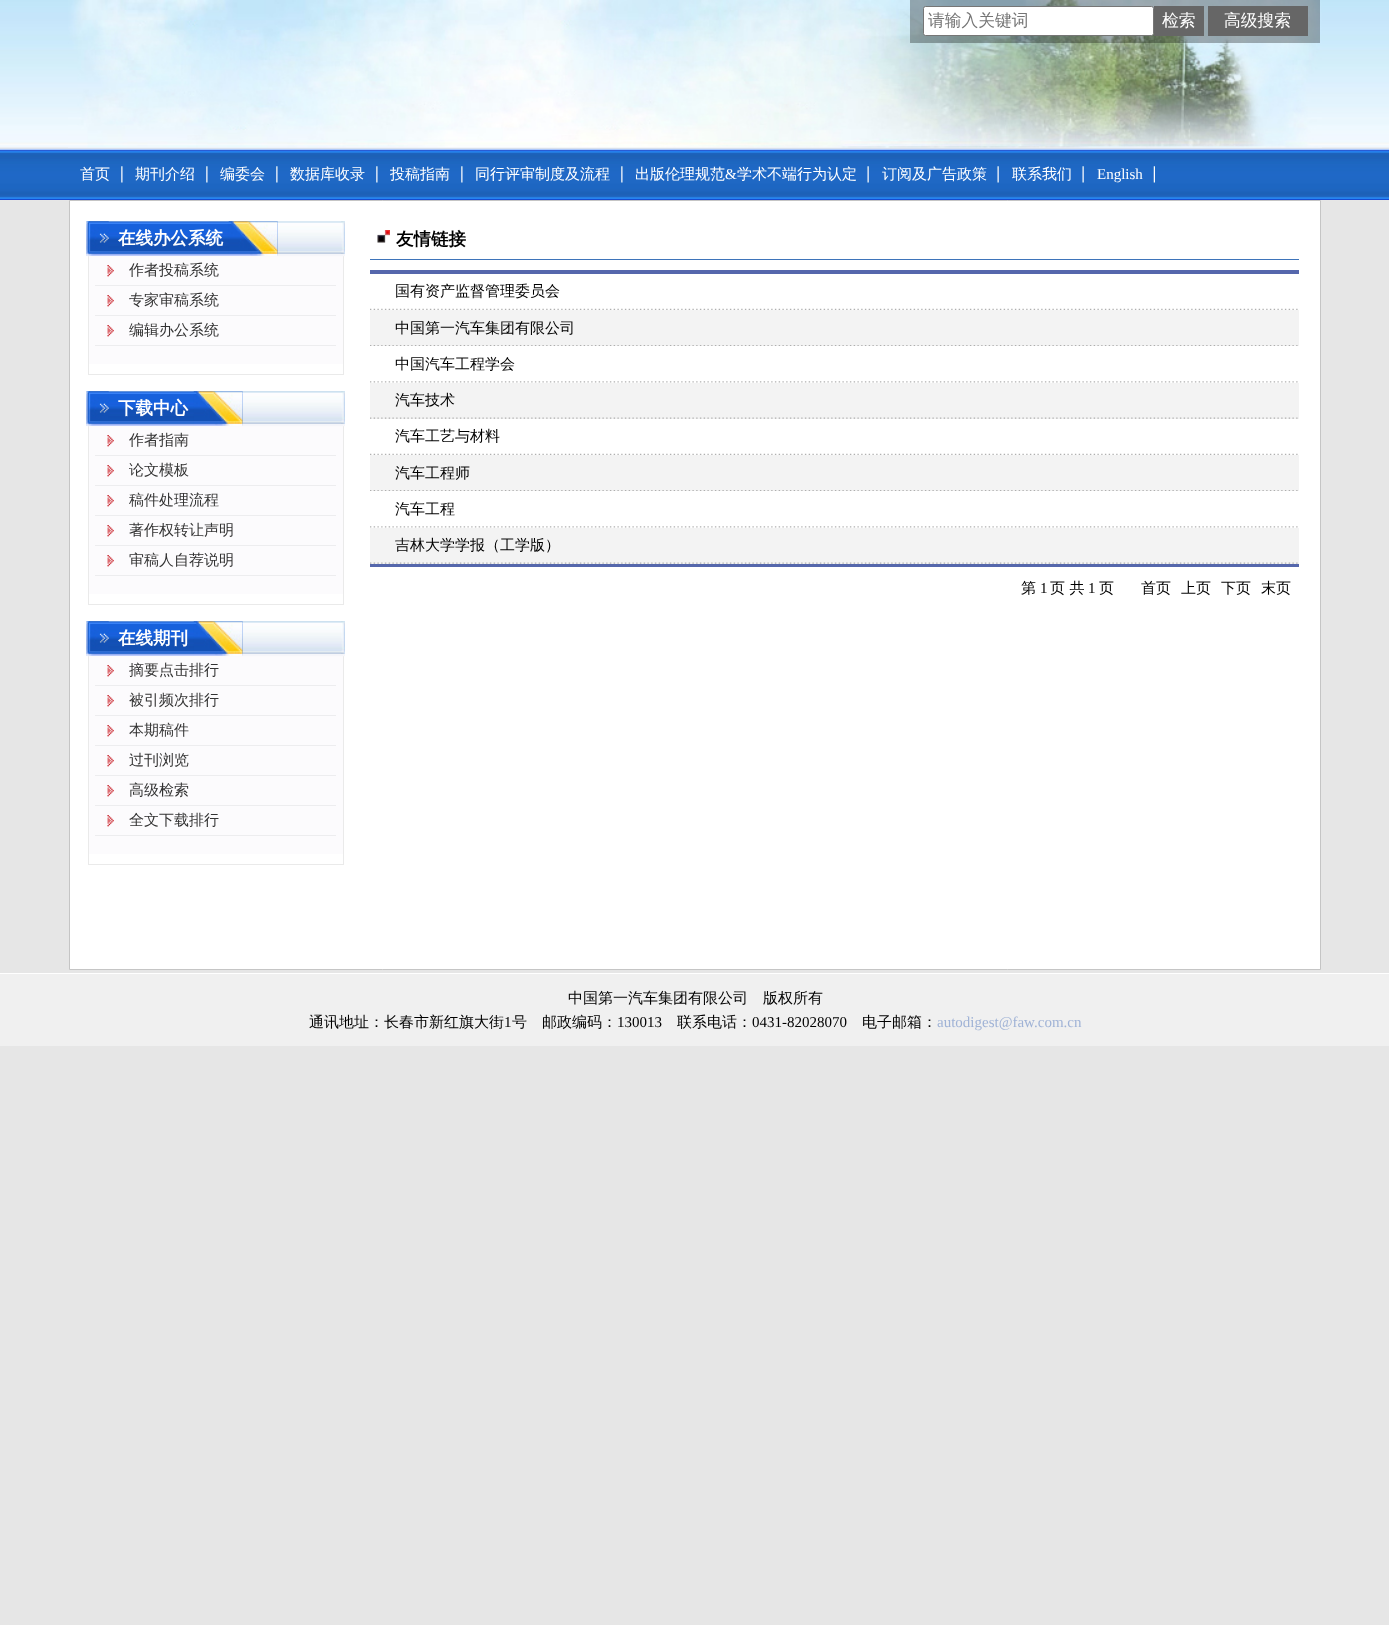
<!DOCTYPE html>
<meta charset="utf-8">
<style>body { margin: 0 } canvas { display: block }</style>
<canvas id="canvas" width="1389" height="1625"></canvas>
<img id="img1" src="images/1.png" hidden>
<img id="img2" src="images/2.png" hidden>
<img id="img3" src="images/3.png" hidden>
<img id="img4" src="images/4.png" hidden>
<img id="img5" src="images/5.png" hidden>
<img id="img6" src="images/6.png" hidden>
<img id="img7" src="images/7.png" hidden>
<img id="img8" src="images/8.png" hidden>
<img id="img9" src="images/9.png" hidden>
<img id="img10" src="images/10.png" hidden>
<img id="img11" src="images/11.png" hidden>
<img id="img12" src="images/12.png" hidden>
<img id="img13" src="images/13.png" hidden>
<img id="img14" src="images/14.png" hidden>
<img id="img15" src="images/15.png" hidden>
<img id="img16" src="images/16.png" hidden>
<img id="img17" src="images/17.png" hidden>
<img id="img18" src="images/18.png" hidden>
<img id="img19" src="images/19.png" hidden>
<img id="img20" src="images/20.png" hidden>
<img id="img21" src="images/21.png" hidden>
<img id="img22" src="images/22.png" hidden>
<script>
window.onload = function () {
    const canvas = document.getElementById('canvas');
    const context = canvas.getContext('2d');
    context.miterLimit = 4;
    context.fontKerning = 'normal';

    context.fillStyle = 'rgb(230, 230, 230)';
    context.fillRect(0, 0, 1389, 1625);
    context.drawImage(document.getElementById('img1'), 0, 0, 1389, 148);
    context.drawImage(document.getElementById('img2'), 68, 0, 1254, 148);
    context.fillStyle = 'rgb(255, 255, 255)';
    context.beginPath();
    context.rect(69.5, 200.5, 1251, 769);
    context.fill();
    context.strokeStyle = 'rgb(197, 197, 197)';
    context.stroke();
    context.fillStyle = 'rgba(0, 0, 0, 0.3)';
    context.fillRect(910, 0, 410, 43);
    context.fillStyle = 'rgb(255, 255, 255)';
    context.beginPath();
    context.roundRect(923.5, 6.5, 230, 29, 2);
    context.fill();
    context.strokeStyle = 'rgb(118, 118, 118)';
    context.stroke();
    context.fillStyle = 'rgb(102, 102, 102)';
    context.fillRect(1154, 6, 50, 30);
    context.fillRect(1208, 6, 100, 30);
    context.fillStyle = 'rgb(234, 234, 234)';
    context.fillRect(343, 256, 1, 119);
    context.fillRect(88, 374, 256, 1);
    context.fillRect(88, 256, 1, 119);
    context.fillStyle = 'rgb(252, 251, 253)';
    context.fillRect(89, 256, 254, 108);
    context.drawImage(document.getElementById('img3'), 86, 221, 259, 36);
    context.drawImage(document.getElementById('img4'), 86, 221, 192, 35);
    context.drawImage(document.getElementById('img5'), 86, 221, 23, 35);
    context.drawImage(document.getElementById('img6'), 228, 221, 50, 35);
    context.drawImage(document.getElementById('img7'), 341, 221, 4, 33);
    context.fillStyle = 'rgb(237, 237, 239)';
    context.fillRect(95, 285, 241, 1);
    context.drawImage(document.getElementById('img8'), 107, 265, 7, 12);
    context.fillRect(95, 315, 241, 1);
    context.drawImage(document.getElementById('img8'), 107, 295, 7, 12);
    context.fillRect(95, 345, 241, 1);
    context.drawImage(document.getElementById('img8'), 107, 325, 7, 12);
    context.fillStyle = 'rgb(234, 234, 234)';
    context.fillRect(343, 426, 1, 179);
    context.fillRect(88, 604, 256, 1);
    context.fillRect(88, 426, 1, 179);
    context.fillStyle = 'rgb(252, 251, 253)';
    context.fillRect(89, 426, 254, 168);
    context.drawImage(document.getElementById('img9'), 86, 391, 259, 36);
    context.drawImage(document.getElementById('img10'), 86, 391, 157, 35);
    context.drawImage(document.getElementById('img11'), 86, 391, 23, 35);
    context.drawImage(document.getElementById('img12'), 193, 391, 50, 35);
    context.drawImage(document.getElementById('img13'), 341, 391, 4, 33);
    context.fillStyle = 'rgb(237, 237, 239)';
    context.fillRect(95, 455, 241, 1);
    context.drawImage(document.getElementById('img8'), 107, 435, 7, 12);
    context.fillRect(95, 485, 241, 1);
    context.drawImage(document.getElementById('img8'), 107, 465, 7, 12);
    context.fillRect(95, 515, 241, 1);
    context.drawImage(document.getElementById('img8'), 107, 495, 7, 12);
    context.fillRect(95, 545, 241, 1);
    context.drawImage(document.getElementById('img8'), 107, 525, 7, 12);
    context.fillRect(95, 575, 241, 1);
    context.drawImage(document.getElementById('img8'), 107, 555, 7, 12);
    context.fillStyle = 'rgb(234, 234, 234)';
    context.fillRect(343, 656, 1, 209);
    context.fillRect(88, 864, 256, 1);
    context.fillRect(88, 656, 1, 209);
    context.fillStyle = 'rgb(252, 251, 253)';
    context.fillRect(89, 656, 254, 198);
    context.drawImage(document.getElementById('img9'), 86, 621, 259, 36);
    context.drawImage(document.getElementById('img10'), 86, 621, 157, 35);
    context.drawImage(document.getElementById('img11'), 86, 621, 23, 35);
    context.drawImage(document.getElementById('img12'), 193, 621, 50, 35);
    context.drawImage(document.getElementById('img13'), 341, 621, 4, 33);
    context.fillStyle = 'rgb(237, 237, 239)';
    context.fillRect(95, 685, 241, 1);
    context.drawImage(document.getElementById('img8'), 107, 665, 7, 12);
    context.fillRect(95, 715, 241, 1);
    context.drawImage(document.getElementById('img8'), 107, 695, 7, 12);
    context.fillRect(95, 745, 241, 1);
    context.drawImage(document.getElementById('img8'), 107, 725, 7, 12);
    context.fillRect(95, 775, 241, 1);
    context.drawImage(document.getElementById('img8'), 107, 755, 7, 12);
    context.fillRect(95, 805, 241, 1);
    context.drawImage(document.getElementById('img8'), 107, 785, 7, 12);
    context.fillRect(95, 835, 241, 1);
    context.drawImage(document.getElementById('img8'), 107, 815, 7, 12);
    context.fillStyle = 'rgb(62, 116, 186)';
    context.fillRect(370, 259, 929, 1);
    context.drawImage(document.getElementById('img14'), 377, 230, 13, 13);
    context.fillStyle = 'rgb(85, 103, 172)';
    context.fillRect(370, 270, 929, 4);
    context.fillRect(370, 564, 929, 3);
    context.drawImage(document.getElementById('img15'), 370, 308, 928, 2);
    context.fillStyle = 'rgb(243, 243, 243)';
    context.fillRect(370, 310, 929, 36);
    context.drawImage(document.getElementById('img16'), 370, 345, 928, 1);
    context.drawImage(document.getElementById('img17'), 370, 381, 928, 2);
    context.fillRect(370, 383, 929, 36);
    context.drawImage(document.getElementById('img18'), 370, 417, 928, 2);
    context.drawImage(document.getElementById('img15'), 370, 453, 928, 2);
    context.fillRect(370, 455, 929, 36);
    context.drawImage(document.getElementById('img16'), 370, 490, 928, 1);
    context.drawImage(document.getElementById('img17'), 370, 526, 928, 2);
    context.fillRect(370, 528, 929, 36);
    context.drawImage(document.getElementById('img18'), 370, 562, 928, 2);
    context.drawImage(document.getElementById('img19'), 0, 148, 1389, 52);
    context.drawImage(document.getElementById('img20'), 121, 166, 2, 17);
    context.drawImage(document.getElementById('img20'), 206, 166, 2, 17);
    context.drawImage(document.getElementById('img20'), 276, 166, 2, 17);
    context.drawImage(document.getElementById('img20'), 376, 166, 2, 17);
    context.drawImage(document.getElementById('img20'), 461, 166, 2, 17);
    context.drawImage(document.getElementById('img20'), 621, 166, 2, 17);
    context.drawImage(document.getElementById('img21'), 867, 166, 2, 17);
    context.drawImage(document.getElementById('img21'), 997, 166, 2, 17);
    context.drawImage(document.getElementById('img21'), 1082, 166, 2, 17);
    context.drawImage(document.getElementById('img22'), 1153, 166, 2, 17);
    context.fillStyle = 'rgb(240, 240, 240)';
    context.fillRect(0, 974, 1389, 72);
    context.fillStyle = 'rgb(255, 255, 255)';
    context.fillRect(0, 973, 1389, 1);
    context.font = '500 16.75px WenQuanYi Zen Hei';
    context.fillStyle = 'rgb(117, 117, 117)';
    context.fillText('请输入关键词', 928, 26);
    context.fillStyle = 'rgb(255, 255, 255)';
    context.fillText('检索', 1162, 26);
    context.fillText('高级搜索', 1224, 26);
    context.font = 'bold 17.5px WenQuanYi Zen Hei';
    context.fillText('在线办公系统', 118, 244);
    context.font = '500 15px WenQuanYi Zen Hei';
    context.fillStyle = 'rgb(51, 51, 51)';
    context.fillText('作者投稿系统', 129, 275);
    context.fillText('专家审稿系统', 129, 305);
    context.fillText('编辑办公系统', 129, 335);
    context.font = 'bold 17.5px WenQuanYi Zen Hei';
    context.fillStyle = 'rgb(255, 255, 255)';
    context.fillText('下载中心', 118, 414);
    context.font = '500 15px WenQuanYi Zen Hei';
    context.fillStyle = 'rgb(51, 51, 51)';
    context.fillText('作者指南', 129, 445);
    context.fillText('论文模板', 129, 475);
    context.fillText('稿件处理流程', 129, 505);
    context.fillText('著作权转让声明', 129, 535);
    context.fillText('审稿人自荐说明', 129, 565);
    context.font = 'bold 17.5px WenQuanYi Zen Hei';
    context.fillStyle = 'rgb(255, 255, 255)';
    context.fillText('在线期刊', 118, 644);
    context.font = '500 15px WenQuanYi Zen Hei';
    context.fillStyle = 'rgb(51, 51, 51)';
    context.fillText('摘要点击排行', 129, 675);
    context.fillText('被引频次排行', 129, 705);
    context.fillText('本期稿件', 129, 735);
    context.fillText('过刊浏览', 129, 765);
    context.fillText('高级检索', 129, 795);
    context.fillText('全文下载排行', 129, 825);
    context.font = 'bold 17.5px WenQuanYi Zen Hei';
    context.fillStyle = 'rgb(0, 0, 0)';
    context.fillText('友情链接', 396, 245);
    context.font = '500 15px WenQuanYi Zen Hei';
    context.fillText('国有资产监督管理委员会', 395, 296);
    context.fillText('中国第一汽车集团有限公司', 395, 333);
    context.fillText('中国汽车工程学会', 395, 369);
    context.fillText('汽车技术', 395, 405);
    context.fillText('汽车工艺与材料', 395, 441);
    context.fillText('汽车工程师', 395, 478);
    context.fillText('汽车工程', 395, 514);
    context.fillText('吉林大学学报（工学版）', 395, 550);
    context.fillText('第', 1021, 593);
    context.font = '15px Liberation Serif';
    context.fillText('1', 1040, 593);
    context.font = '500 15px WenQuanYi Zen Hei';
    context.fillText('页 共', 1050, 593);
    context.font = '15px Liberation Serif';
    context.fillText('1', 1088, 593);
    context.font = '500 15px WenQuanYi Zen Hei';
    context.fillText('页', 1099, 593);
    context.fillText('首页', 1141, 593);
    context.fillText('上页', 1181, 593);
    context.fillText('下页', 1221, 593);
    context.fillText('末页', 1261, 593);
    context.fillStyle = 'rgb(255, 255, 255)';
    context.fillText('首页', 80, 179);
    context.fillText('期刊介绍', 135, 179);
    context.fillText('编委会', 220, 179);
    context.fillText('数据库收录', 290, 179);
    context.fillText('投稿指南', 390, 179);
    context.fillText('同行评审制度及流程', 475, 179);
    context.fillText('出版伦理规范', 635, 179);
    context.font = '15px Liberation Serif';
    context.fillText('&', 725, 179);
    context.font = '500 15px WenQuanYi Zen Hei';
    context.fillText('学术不端行为认定', 737, 179);
    context.fillText('订阅及广告政策', 882, 179);
    context.fillText('联系我们', 1012, 179);
    context.font = '15px Liberation Serif';
    context.fillText('English', 1097, 179);
    context.font = '500 15px WenQuanYi Zen Hei';
    context.fillStyle = 'rgb(0, 0, 0)';
    context.fillText('中国第一汽车集团有限公司', 568, 1003);
    context.fillText('版权所有', 763, 1003);
    context.fillText('通讯地址：长春市新红旗大街', 309, 1027);
    context.font = '15px Liberation Serif';
    context.fillText('1', 504, 1027);
    context.font = '500 15px WenQuanYi Zen Hei';
    context.fillText('号', 512, 1027);
    context.fillText('邮政编码：', 542, 1027);
    context.font = '15px Liberation Serif';
    context.fillText('130013', 617, 1027);
    context.font = '500 15px WenQuanYi Zen Hei';
    context.fillText('联系电话：', 677, 1027);
    context.font = '15px Liberation Serif';
    context.fillText('0431-82028070', 752, 1027);
    context.font = '500 15px WenQuanYi Zen Hei';
    context.fillText('电子邮箱：', 862, 1027);
    context.font = '15px Liberation Serif';
    context.fillStyle = 'rgb(160, 179, 214)';
    context.fillText('autodigest@faw.com.cn', 937, 1027);
};
</script>
